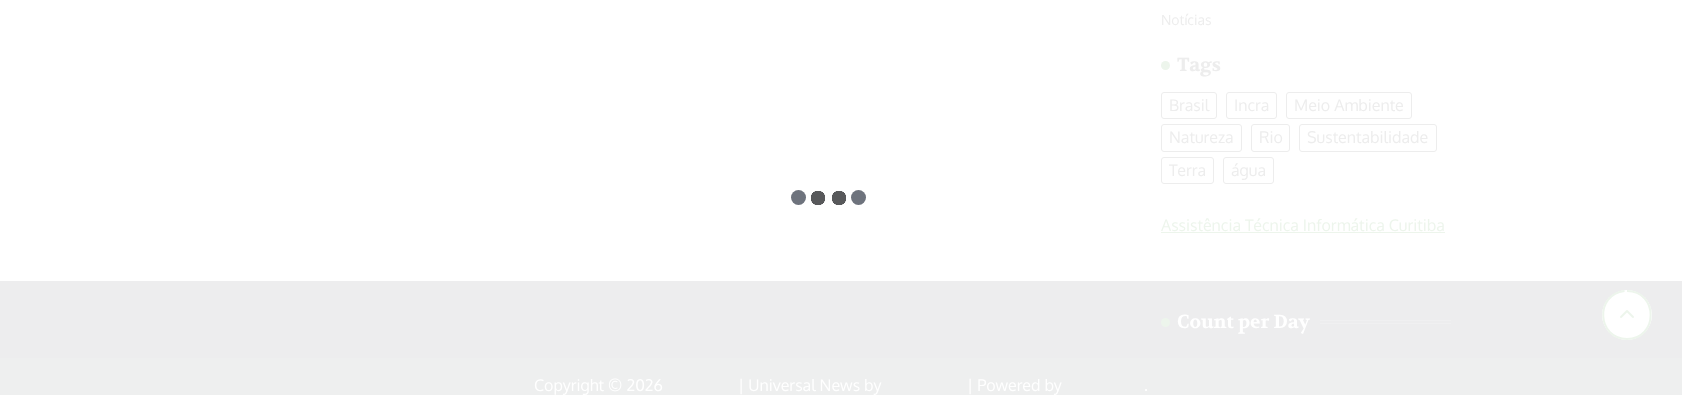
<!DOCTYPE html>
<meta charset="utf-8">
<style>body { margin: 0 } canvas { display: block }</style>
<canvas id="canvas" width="1682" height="395"></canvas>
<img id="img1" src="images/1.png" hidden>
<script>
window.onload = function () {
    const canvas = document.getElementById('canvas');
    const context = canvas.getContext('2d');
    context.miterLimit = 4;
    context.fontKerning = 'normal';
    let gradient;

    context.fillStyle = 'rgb(255, 255, 255)';
    context.fillRect(0, 0, 1682, 395);
    gradient = context.createRadialGradient(839, 198, 0, 839, 198, 7.5);
    gradient.addColorStop(0.95, 'rgb(88, 89, 91)');
    gradient.addColorStop(1, 'rgb(255, 255, 255)');
    context.fillStyle = gradient;
    context.fillRect(832, 191, 14, 14);
    gradient = context.createRadialGradient(818, 198, 0, 818, 198, 7.5);
    gradient.addColorStop(0.95, 'rgb(88, 89, 91)');
    gradient.addColorStop(1, 'rgb(255, 255, 255)');
    context.fillStyle = gradient;
    context.fillRect(811, 191, 14, 14);
    context.fillStyle = 'rgb(110, 115, 125)';
    context.beginPath();
    context.arc(798.5, 197.5, 7.5, 0, 2 * Math.PI);
    context.fill();
    context.beginPath();
    context.arc(858.5, 197.5, 7.5, 0, 2 * Math.PI);
    context.fill();
    context.fillStyle = 'rgb(237, 245, 236)';
    context.beginPath();
    context.arc(1165.5, 65.5, 4.5, 0, 2 * Math.PI);
    context.fill();
    context.beginPath();
    context.roundRect(1161.5, 92.5, 55, 26, 2.5);
    context.strokeStyle = 'rgb(237, 237, 237)';
    context.stroke();
    context.beginPath();
    context.roundRect(1226.5, 92.5, 50, 26, 2.5);
    context.stroke();
    context.beginPath();
    context.roundRect(1286.5, 92.5, 125, 26, 2.5);
    context.stroke();
    context.beginPath();
    context.roundRect(1161.5, 124.5, 80, 27, 2.5);
    context.stroke();
    context.beginPath();
    context.roundRect(1251.5, 124.5, 38, 27, 2.5);
    context.stroke();
    context.beginPath();
    context.roundRect(1299.5, 124.5, 137, 27, 2.5);
    context.stroke();
    context.beginPath();
    context.roundRect(1161.5, 157.5, 52, 26, 2.5);
    context.stroke();
    context.beginPath();
    context.roundRect(1223.5, 157.5, 50, 26, 2.5);
    context.stroke();
    context.fillRect(1161, 232, 284, 1);
    context.fillStyle = 'rgb(237, 237, 238)';
    context.fillRect(0, 281, 1682, 77);
    context.fillStyle = 'rgb(237, 245, 236)';
    context.beginPath();
    context.arc(1165.5, 322.5, 4.5, 0, 2 * Math.PI);
    context.fill();
    context.fillStyle = 'rgb(240, 240, 241)';
    context.fillRect(1320, 320, 131, 1);
    context.fillRect(1320, 323, 131, 1);
    context.fillStyle = 'rgb(238, 239, 239)';
    context.fillRect(0, 358, 1682, 37);
    context.fillStyle = 'rgb(255, 255, 255)';
    context.beginPath();
    context.arc(1627, 315, 25, 0, 2 * Math.PI);
    context.fill();
    context.drawImage(document.getElementById('img1'), 1620, 310, 14, 8);
    context.beginPath();
    context.moveTo(1627, 291);
    context.bezierCurveTo(1658.5, 291, 1658.5, 339, 1627, 339);
    context.bezierCurveTo(1597, 339, 1594.5, 294.5, 1624.5, 291);
    context.strokeStyle = 'rgb(237, 245, 236)';
    context.lineWidth = 2;
    context.stroke();
    context.font = '14px Oxygen';
    context.fillStyle = 'rgb(237, 237, 237)';
    context.fillText('Notícias', 1161, 25);
    context.font = 'bold 19px Volkhov';
    context.fillText('Tags', 1177, 71);
    context.font = '16px Oxygen';
    context.fillText('Brasil', 1169, 111);
    context.fillText('Incra', 1234, 111);
    context.fillText('Meio Ambiente', 1294, 111);
    context.fillText('Natureza', 1169, 143);
    context.fillText('Rio', 1259, 143);
    context.fillText('Sustentabilidade', 1307, 143);
    context.fillText('Terra', 1169, 176);
    context.fillText('água', 1231, 176);
    context.fillStyle = 'rgb(237, 245, 236)';
    context.fillText('Assistência Técnica Informática Curitiba', 1161, 231);
    context.font = 'bold 19px Volkhov';
    context.fillStyle = 'rgb(255, 255, 255)';
    context.fillText('Count per Day', 1177, 328);
    context.font = '16px Oxygen';
    context.fillText('Copyright © 2026', 534, 391);
    context.fillText('| Universal News by', 738, 391);
    context.fillText('| Powered by', 967, 391);
    context.fillText('.', 1144, 391);
};
</script>
